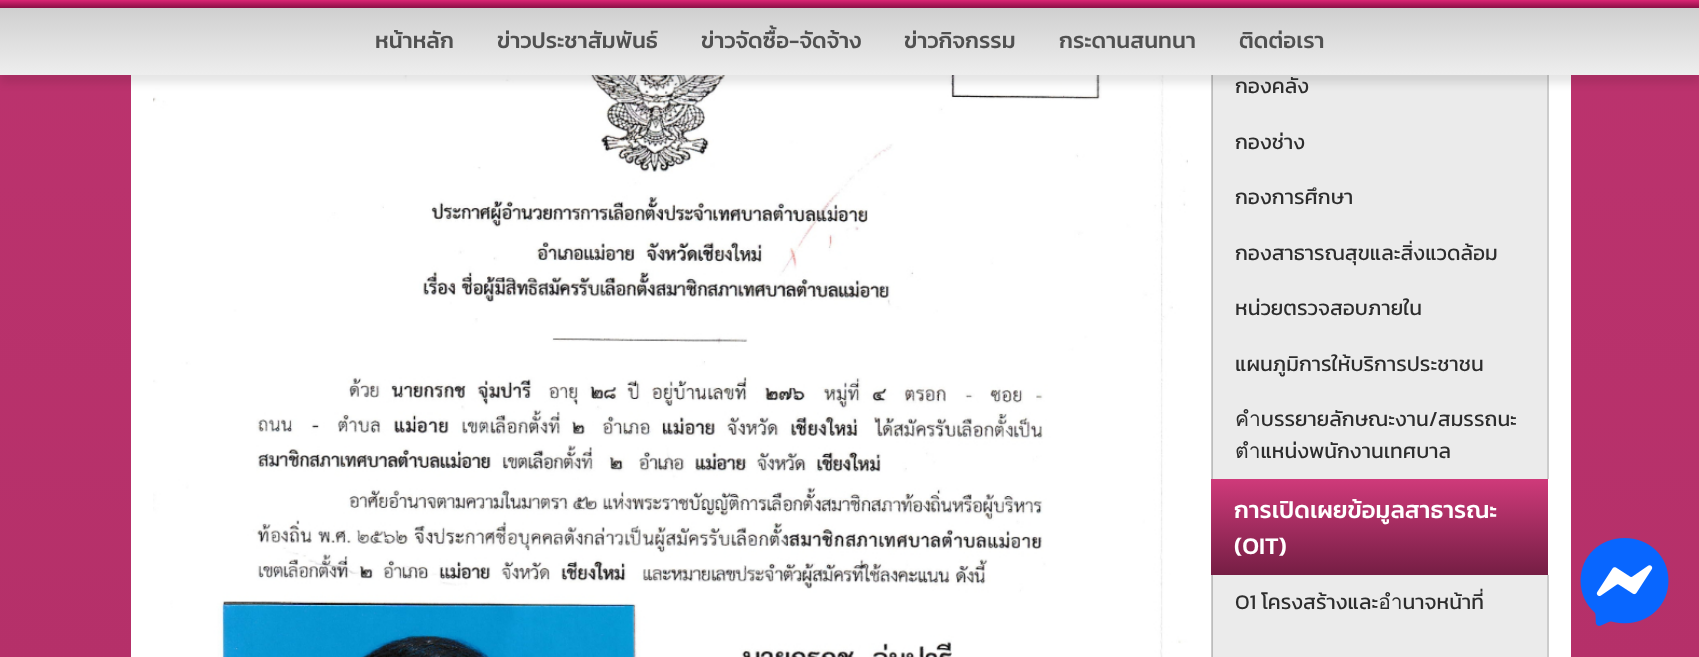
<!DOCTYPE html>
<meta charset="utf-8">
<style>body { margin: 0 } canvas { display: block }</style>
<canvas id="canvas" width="1699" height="657"></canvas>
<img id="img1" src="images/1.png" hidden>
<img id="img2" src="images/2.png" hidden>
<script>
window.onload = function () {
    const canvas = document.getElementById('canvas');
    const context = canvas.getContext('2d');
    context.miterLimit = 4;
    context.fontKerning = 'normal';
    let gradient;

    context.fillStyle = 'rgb(255, 255, 255)';
    context.fillRect(0, 0, 1699, 657);
    gradient = context.createLinearGradient(850, -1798, 850, 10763);
    gradient.addColorStop(0, 'rgb(207, 58, 122)');
    gradient.addColorStop(1, 'rgb(74, 7, 36)');
    context.fillStyle = gradient;
    context.fillRect(0, 75, 1699, 582);
    context.fillStyle = 'rgb(255, 255, 255)';
    context.fillRect(131, 75, 1440, 582);
    context.fillStyle = 'rgb(235, 235, 235)';
    context.fillRect(1213, 75, 334, 404);
    context.drawImage(document.getElementById('img1'), 153, 75, 1035, 582);
    context.fillStyle = 'rgb(204, 204, 204)';
    context.fillRect(1547, 75, 2, 404);
    context.fillRect(1211, 75, 1, 404);
    context.fillStyle = 'rgb(188, 188, 188)';
    context.fillRect(1212, 75, 1, 404);
    context.fillStyle = 'rgba(0, 0, 0, 0.1)';
    context.filter = 'blur(4px)';
    context.beginPath();
    context.rect(0, 8, 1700, 75);
    context.fill();
    context.filter = 'none';
    gradient = context.createLinearGradient(850, 0, 850, 75);
    gradient.addColorStop(0, 'rgb(204, 204, 204)');
    gradient.addColorStop(1, 'rgb(238, 238, 238)');
    context.fillStyle = gradient;
    context.fillRect(0, 8, 1699, 67);
    gradient = context.createLinearGradient(850, 0, 850, 7.5);
    gradient.addColorStop(0, 'rgb(219, 37, 116)');
    gradient.addColorStop(1, 'rgb(143, 17, 72)');
    context.fillStyle = gradient;
    context.fillRect(0, 0, 1699, 8);
    context.fillStyle = 'rgb(235, 235, 235)';
    context.fillRect(1213, 575, 334, 82);
    gradient = context.createLinearGradient(1379, 479, 1379, 575);
    gradient.addColorStop(0, 'rgb(207, 58, 122)');
    gradient.addColorStop(1, 'rgb(117, 30, 68)');
    context.fillStyle = gradient;
    context.fillRect(1211, 479, 337, 96);
    context.fillStyle = 'rgb(204, 204, 204)';
    context.fillRect(1547, 575, 2, 82);
    context.fillRect(1211, 575, 1, 82);
    context.fillStyle = 'rgb(188, 188, 188)';
    context.fillRect(1212, 575, 1, 82);
    context.drawImage(document.getElementById('img2'), 1580, 538, 89, 88);
    context.font = '500 22.5px Kanit';
    context.fillStyle = 'rgb(81, 81, 81)';
    context.fillText('หน้าหลัก', 375, 48);
    context.fillText('ข่าวประชาสัมพันธ์', 497, 48);
    context.fillText('ข่าวจัดซื้อ-จัดจ้าง', 701, 48);
    context.fillText('ข่าวกิจกรรม', 904, 48);
    context.fillText('กระดานสนทนา', 1059, 48);
    context.fillText('ติดต่อเรา', 1239, 48);
    context.font = '21px Kanit';
    context.fillStyle = 'rgb(46, 46, 46)';
    context.fillText('กองคลัง', 1235, 93);
    context.fillText('กองช่าง', 1235, 149);
    context.fillText('กองการศึกษา', 1235, 204);
    context.fillText('กองสาธารณสุขและสิ่งแวดล้อม', 1235, 260);
    context.fillText('หน่วยตรวจสอบภายใน', 1235, 315);
    context.fillText('แผนภูมิการให้บริการประชาชน', 1235, 371);
    context.fillText('คำบรรยายลักษณะงาน/สมรรถนะ', 1235, 426);
    context.fillText('ตำแหน่งพนักงานเทศบาล', 1235, 458);
    context.font = '500 24px Kanit';
    context.fillStyle = 'rgb(255, 255, 255)';
    context.fillText('การเปิดเผยข้อมูลสาธารณะ', 1234, 518);
    context.fillText('(OIT)', 1234, 554);
    context.font = '21px Kanit';
    context.fillStyle = 'rgb(46, 46, 46)';
    context.fillText('O1 โครงสร้างและอำนาจหน้าที่', 1235, 609);
};
</script>
